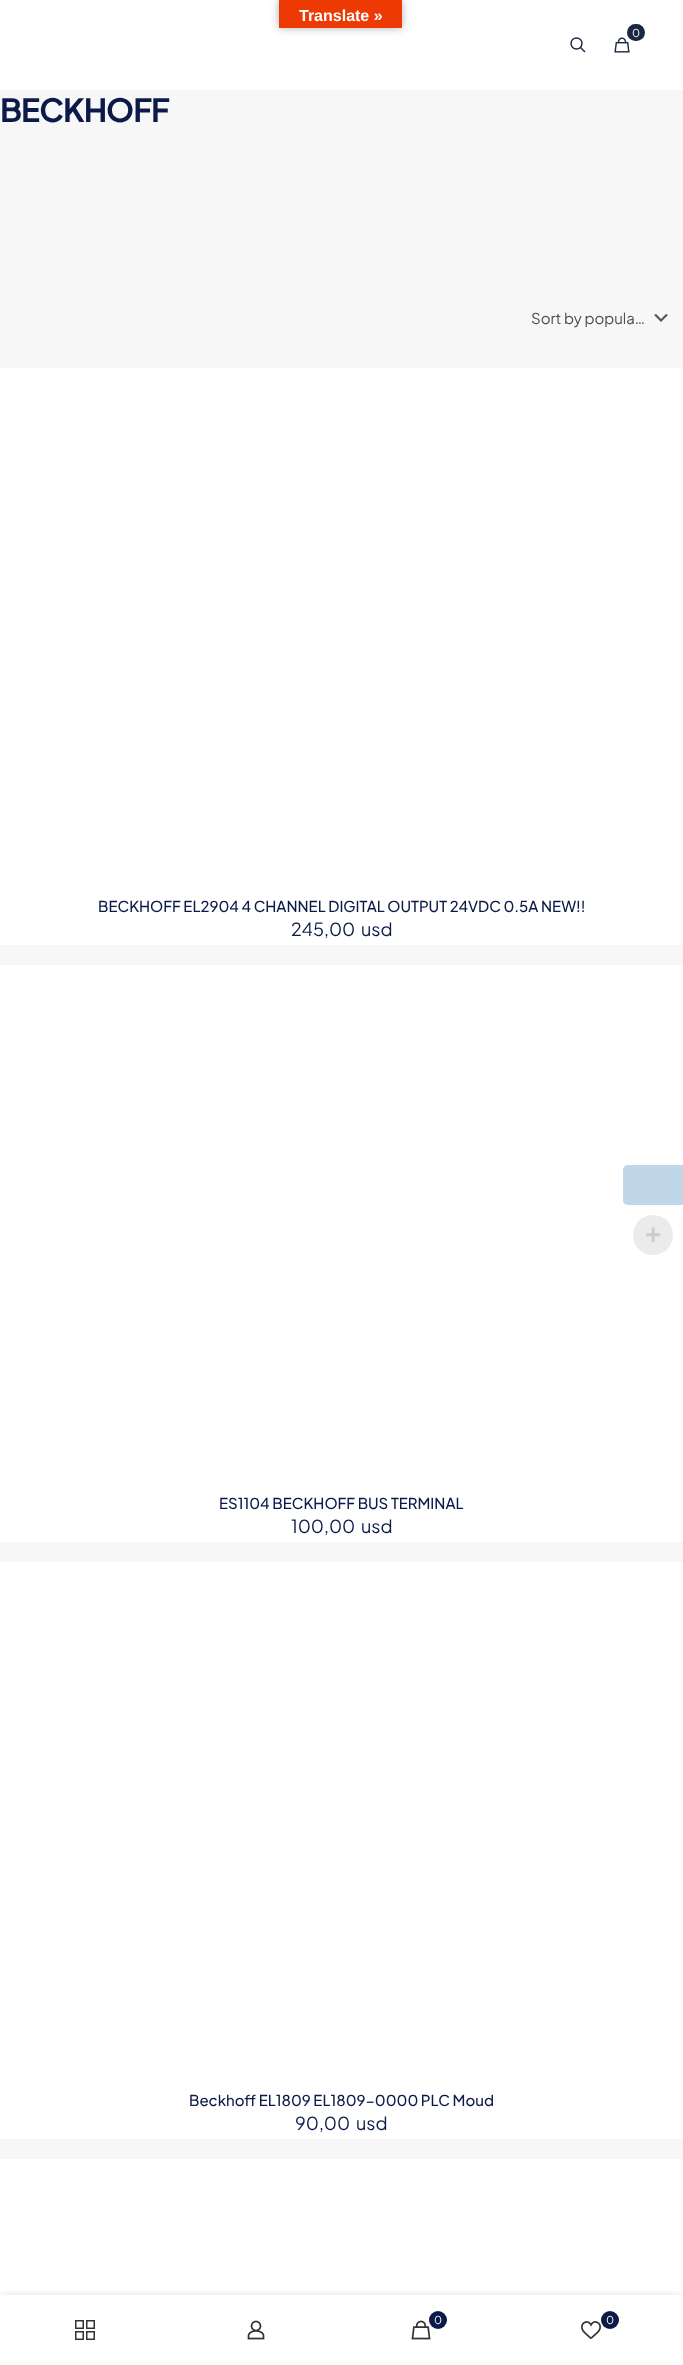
<!DOCTYPE html>
<meta charset="utf-8">
<style>body { margin: 0 } canvas { display: block }</style>
<canvas id="canvas" width="683" height="2365"></canvas>
<img id="img1" src="images/1.png" hidden>
<img id="img2" src="images/2.png" hidden>
<img id="img3" src="images/3.png" hidden>
<img id="img4" src="images/4.png" hidden>
<img id="img5" src="images/5.png" hidden>
<script>
window.onload = function () {
    const canvas = document.getElementById('canvas');
    const context = canvas.getContext('2d');
    context.miterLimit = 4;
    context.fontKerning = 'normal';

    context.fillStyle = 'rgb(247, 247, 247)';
    context.fillRect(0, 0, 683, 2365);
    context.fillStyle = 'rgb(255, 255, 255)';
    context.fillRect(0, 0, 683, 90);
    context.fillStyle = 'rgba(0, 0, 0, 0.3)';
    context.filter = 'blur(4.5px)';
    context.beginPath();
    context.rect(279, 0, 123, 28);
    context.fill();
    context.filter = 'none';
    context.fillStyle = 'rgb(237, 58, 4)';
    context.fillRect(279, 0, 123, 28);
    context.drawImage(document.getElementById('img1'), 614, 37, 16, 16);
    context.fillStyle = 'rgb(26, 39, 65)';
    context.beginPath();
    context.roundRect(627, 24, 18, 17, 8.5);
    context.fill();
    context.beginPath();
    context.arc(576.5, 43.5, 5.5, 0, 2 * Math.PI);
    context.strokeStyle = 'rgb(26, 39, 65)';
    context.lineWidth = 1.4;
    context.stroke();
    context.beginPath();
    context.moveTo(580.5, 47.5);
    context.lineTo(585, 52);
    context.stroke();
    context.drawImage(document.getElementById('img2'), 654, 314, 14, 8);
    context.fillStyle = 'rgb(255, 255, 255)';
    context.fillRect(0, 368, 683, 577);
    context.fillRect(0, 965, 683, 577);
    context.fillRect(0, 1562, 683, 577);
    context.fillRect(0, 2159, 683, 206);
    context.fillStyle = 'rgb(192, 215, 233)';
    context.beginPath();
    context.moveTo(628, 1165);
    context.lineTo(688, 1165);
    context.lineTo(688, 1205);
    context.lineTo(628, 1205);
    context.bezierCurveTo(625, 1205, 623, 1203, 623, 1200);
    context.lineTo(623, 1170);
    context.bezierCurveTo(623, 1167, 625, 1165, 628, 1165);
    context.closePath();
    context.fill();
    context.fillStyle = 'rgb(235, 235, 235)';
    context.beginPath();
    context.arc(653, 1235, 20, 0, 2 * Math.PI);
    context.fill();
    context.save();
    context.beginPath();
    context.rect(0, 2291, 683, 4);
    context.clip();
    context.fillStyle = 'rgba(0, 0, 0, 0.1)';
    context.filter = 'blur(5px)';
    context.beginPath();
    context.rect(0, 2295, 683, 70);
    context.fill();
    context.filter = 'none';
    context.restore();
    context.strokeStyle = 'rgb(51, 51, 51)';
    context.lineWidth = 1.5;
    context.strokeRect(86.75, 2320.75, 7.5, 7.5);
    context.strokeRect(75.75, 2320.75, 7.5, 7.5);
    context.strokeRect(75.75, 2331.75, 7.5, 7.5);
    context.strokeRect(86.75, 2331.75, 7.5, 7.5);
    context.drawImage(document.getElementById('img3'), 247, 2320, 18, 20);
    context.drawImage(document.getElementById('img4'), 411, 2320, 20, 20);
    context.fillStyle = 'rgb(11, 26, 72)';
    context.beginPath();
    context.arc(438, 2320, 9, 0, 2 * Math.PI);
    context.fill();
    context.beginPath();
    context.arc(610, 2320, 9, 0, 2 * Math.PI);
    context.fill();
    context.drawImage(document.getElementById('img5'), 581, 2321, 20, 18);
    context.font = 'bold 16px Liberation Sans';
    context.fillStyle = 'rgb(255, 255, 255)';
    context.fillText('Translate »', 299, 21);
    context.font = '11px Plus Jakarta Sans';
    context.fillText('0', 632, 37);
    context.letterSpacing = '-1px';
    context.font = 'bold 32px Plus Jakarta Sans';
    context.fillStyle = 'rgb(11, 26, 72)';
    context.fillText('BECKHOFF', 0, 122);
    context.letterSpacing = '0px';
    context.font = '15px Plus Jakarta Sans';
    context.fillStyle = 'rgb(76, 77, 82)';
    context.fillText('Sort by popula…', 531, 324);
    context.font = '500 15px Plus Jakarta Sans';
    context.fillStyle = 'rgb(11, 26, 72)';
    context.fillText('BECKHOFF EL2904 4 CHANNEL DIGITAL OUTPUT 24VDC 0.5A NEW!!', 98, 912);
    context.font = '18px Plus Jakarta Sans';
    context.fillText('245,00', 291, 936);
    context.fillText('usd', 361, 936);
    context.font = '500 15px Plus Jakarta Sans';
    context.fillText('ES1104 BECKHOFF BUS TERMINAL', 219, 1509);
    context.font = '18px Plus Jakarta Sans';
    context.fillText('100,00', 291, 1533);
    context.fillText('usd', 361, 1533);
    context.font = '500 15px Plus Jakarta Sans';
    context.fillText('Beckhoff EL1809 EL1809-0000 PLC Moud', 189, 2106);
    context.font = '18px Plus Jakarta Sans';
    context.fillText('90,00', 295, 2130);
    context.fillText('usd', 356, 2130);
    context.font = 'bold 28px Liberation Sans';
    context.fillStyle = 'rgb(204, 204, 204)';
    context.fillText('+', 645, 1244);
    context.font = '11px Plus Jakarta Sans';
    context.fillStyle = 'rgb(255, 255, 255)';
    context.fillText('0', 434, 2324);
    context.fillText('0', 606, 2324);
};
</script>
